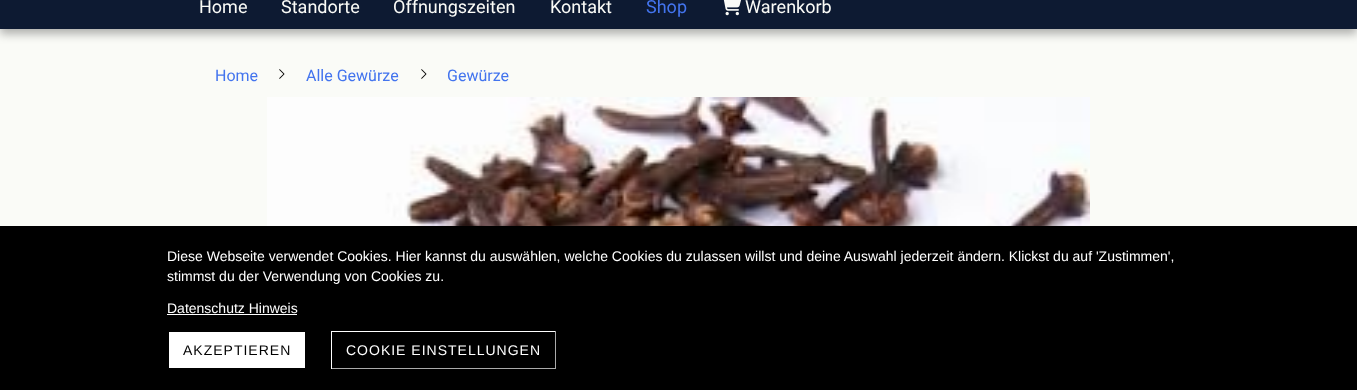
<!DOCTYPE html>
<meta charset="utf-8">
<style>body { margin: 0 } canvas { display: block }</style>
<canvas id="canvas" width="1357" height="390"></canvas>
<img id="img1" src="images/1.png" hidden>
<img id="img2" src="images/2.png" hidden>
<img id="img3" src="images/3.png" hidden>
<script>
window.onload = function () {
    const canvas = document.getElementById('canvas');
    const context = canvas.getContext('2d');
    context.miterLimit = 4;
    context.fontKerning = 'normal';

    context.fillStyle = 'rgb(250, 251, 247)';
    context.fillRect(0, 0, 1357, 390);
    context.fillStyle = 'rgba(0, 0, 0, 0.3)';
    context.filter = 'blur(5px)';
    context.beginPath();
    context.rect(0, -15, 1357, 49);
    context.fill();
    context.filter = 'none';
    context.fillStyle = 'rgb(13, 26, 50)';
    context.fillRect(0, 0, 1357, 29);
    context.drawImage(document.getElementById('img1'), 723, 0, 18, 16);
    context.drawImage(document.getElementById('img2'), 279, 69, 6, 10);
    context.drawImage(document.getElementById('img2'), 421, 69, 6, 10);
    context.drawImage(document.getElementById('img3'), 267, 97, 823, 129);
    context.fillStyle = 'rgb(0, 0, 0)';
    context.fillRect(0, 226, 1357, 164);
    context.fillStyle = 'rgb(255, 255, 255)';
    context.fillRect(167, 314, 130, 1);
    context.fillRect(169, 332, 136, 36);
    context.fillRect(331, 331, 225, 1);
    context.fillStyle = 'rgb(170, 170, 170)';
    context.fillRect(555, 331, 1, 38);
    context.fillRect(331, 368, 225, 1);
    context.fillStyle = 'rgb(255, 255, 255)';
    context.fillRect(331, 331, 1, 38);
    context.font = '18px Heebo';
    context.fillStyle = 'rgb(250, 251, 247)';
    context.fillText('Home', 199, 13);
    context.fillText('Standorte', 281, 13);
    context.fillText('Öffnungszeiten', 393, 13);
    context.fillText('Kontakt', 550, 13);
    context.fillStyle = 'rgb(67, 116, 238)';
    context.fillText('Shop', 646, 13);
    context.fillStyle = 'rgb(250, 251, 247)';
    context.fillText('Warenkorb', 745, 13);
    context.font = '16px Heebo';
    context.fillStyle = 'rgb(67, 116, 238)';
    context.fillText('Home', 215, 81);
    context.fillText('Alle Gewürze', 306, 81);
    context.fillText('Gewürze', 447, 81);
    context.font = '14px Liberation Sans';
    context.fillStyle = 'rgb(255, 255, 255)';
    context.fillText('Diese Webseite verwendet Cookies. Hier kannst du auswählen, welche Cookies du zulassen willst und deine Auswahl jederzeit ändern. Klickst du auf \'Zustimmen\',', 167, 261);
    context.fillText('stimmst du der Verwendung von Cookies zu.', 167, 281);
    context.fillText('Datenschutz Hinweis', 167, 313);
    context.letterSpacing = '1px';
    context.fillStyle = 'rgb(0, 0, 0)';
    context.fillText('AKZEPTIEREN', 183, 355);
    context.fillStyle = 'rgb(255, 255, 255)';
    context.fillText('COOKIE EINSTELLUNGEN', 346, 355);
};
</script>
